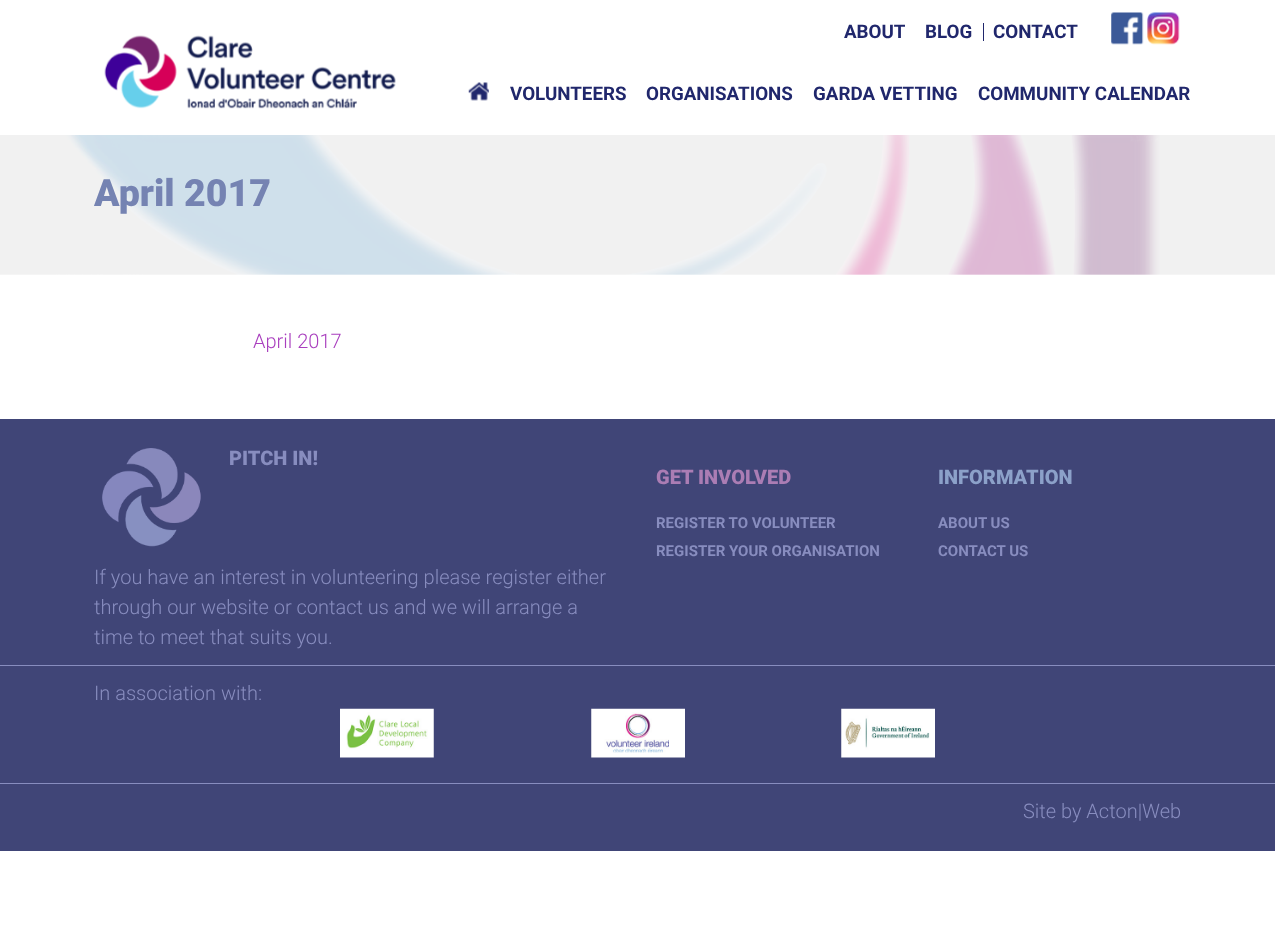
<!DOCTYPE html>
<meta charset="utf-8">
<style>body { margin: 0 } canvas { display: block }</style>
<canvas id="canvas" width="1275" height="943"></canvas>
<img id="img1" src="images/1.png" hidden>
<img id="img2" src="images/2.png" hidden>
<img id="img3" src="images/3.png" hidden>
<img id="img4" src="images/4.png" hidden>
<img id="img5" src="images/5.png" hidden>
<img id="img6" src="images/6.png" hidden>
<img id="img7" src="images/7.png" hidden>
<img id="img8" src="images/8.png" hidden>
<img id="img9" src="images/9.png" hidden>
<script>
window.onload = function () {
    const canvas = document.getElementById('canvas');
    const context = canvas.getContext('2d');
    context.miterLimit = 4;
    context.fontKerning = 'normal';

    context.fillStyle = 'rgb(255, 255, 255)';
    context.fillRect(0, 0, 1275, 943);
    context.fillStyle = 'rgb(32, 39, 108)';
    context.fillRect(983, 23, 1, 18);
    context.drawImage(document.getElementById('img1'), 1111, 12, 33, 33);
    context.drawImage(document.getElementById('img2'), 1147, 12, 33, 33);
    context.drawImage(document.getElementById('img3'), 104, 35, 292, 74);
    context.drawImage(document.getElementById('img4'), 468, 82, 21, 19);
    context.drawImage(document.getElementById('img5'), 0, 135, 1275, 140);
    context.fillStyle = 'rgb(64, 69, 119)';
    context.fillRect(0, 419, 1275, 432);
    context.drawImage(document.getElementById('img6'), 102, 448, 99, 99);
    context.fillStyle = 'rgb(136, 141, 191)';
    context.fillRect(0, 665, 1275, 1);
    context.drawImage(document.getElementById('img7'), 340, 708, 94, 50);
    context.drawImage(document.getElementById('img8'), 591, 708, 94, 50);
    context.drawImage(document.getElementById('img9'), 841, 708, 94, 50);
    context.fillRect(0, 783, 1275, 1);
    context.font = 'bold 18.75px Roboto';
    context.fillStyle = 'rgb(32, 39, 108)';
    context.fillText('ABOUT', 844, 38);
    context.fillText('BLOG', 925, 38);
    context.fillText('CONTACT', 993, 38);
    context.fillText('VOLUNTEERS', 510, 100);
    context.fillText('ORGANISATIONS', 646, 100);
    context.fillText('GARDA VETTING', 813, 100);
    context.fillText('COMMUNITY CALENDAR', 978, 100);
    context.font = '900 37.5px Roboto';
    context.fillStyle = 'rgb(117, 131, 178)';
    context.fillText('April 2017', 94, 206);
    context.font = '300 20px Roboto';
    context.fillStyle = 'rgb(169, 63, 190)';
    context.fillText('April 2017', 253, 348);
    context.font = '900 20px Roboto';
    context.fillStyle = 'rgb(136, 141, 191)';
    context.fillText('PITCH IN!', 229, 465);
    context.font = '300 20px Roboto';
    context.fillText('If you have an interest in volunteering please register either', 94, 584);
    context.fillText('through our website or contact us and we will arrange a', 94, 614);
    context.fillText('time to meet that suits you.', 94, 644);
    context.font = '900 20px Roboto';
    context.fillStyle = 'rgb(171, 125, 180)';
    context.fillText('GET INVOLVED', 656, 484);
    context.font = 'bold 15px Roboto';
    context.fillStyle = 'rgb(136, 141, 191)';
    context.fillText('REGISTER TO VOLUNTEER', 656, 528);
    context.fillText('REGISTER YOUR ORGANISATION', 656, 556);
    context.font = '900 20px Roboto';
    context.fillStyle = 'rgb(140, 161, 201)';
    context.fillText('INFORMATION', 938, 484);
    context.font = 'bold 15px Roboto';
    context.fillStyle = 'rgb(136, 141, 191)';
    context.fillText('ABOUT US', 938, 528);
    context.fillText('CONTACT US', 938, 556);
    context.font = '300 20px Roboto';
    context.fillText('In association with:', 94, 700);
    context.fillText('Site by Acton|Web', 1023, 818);
};
</script>
